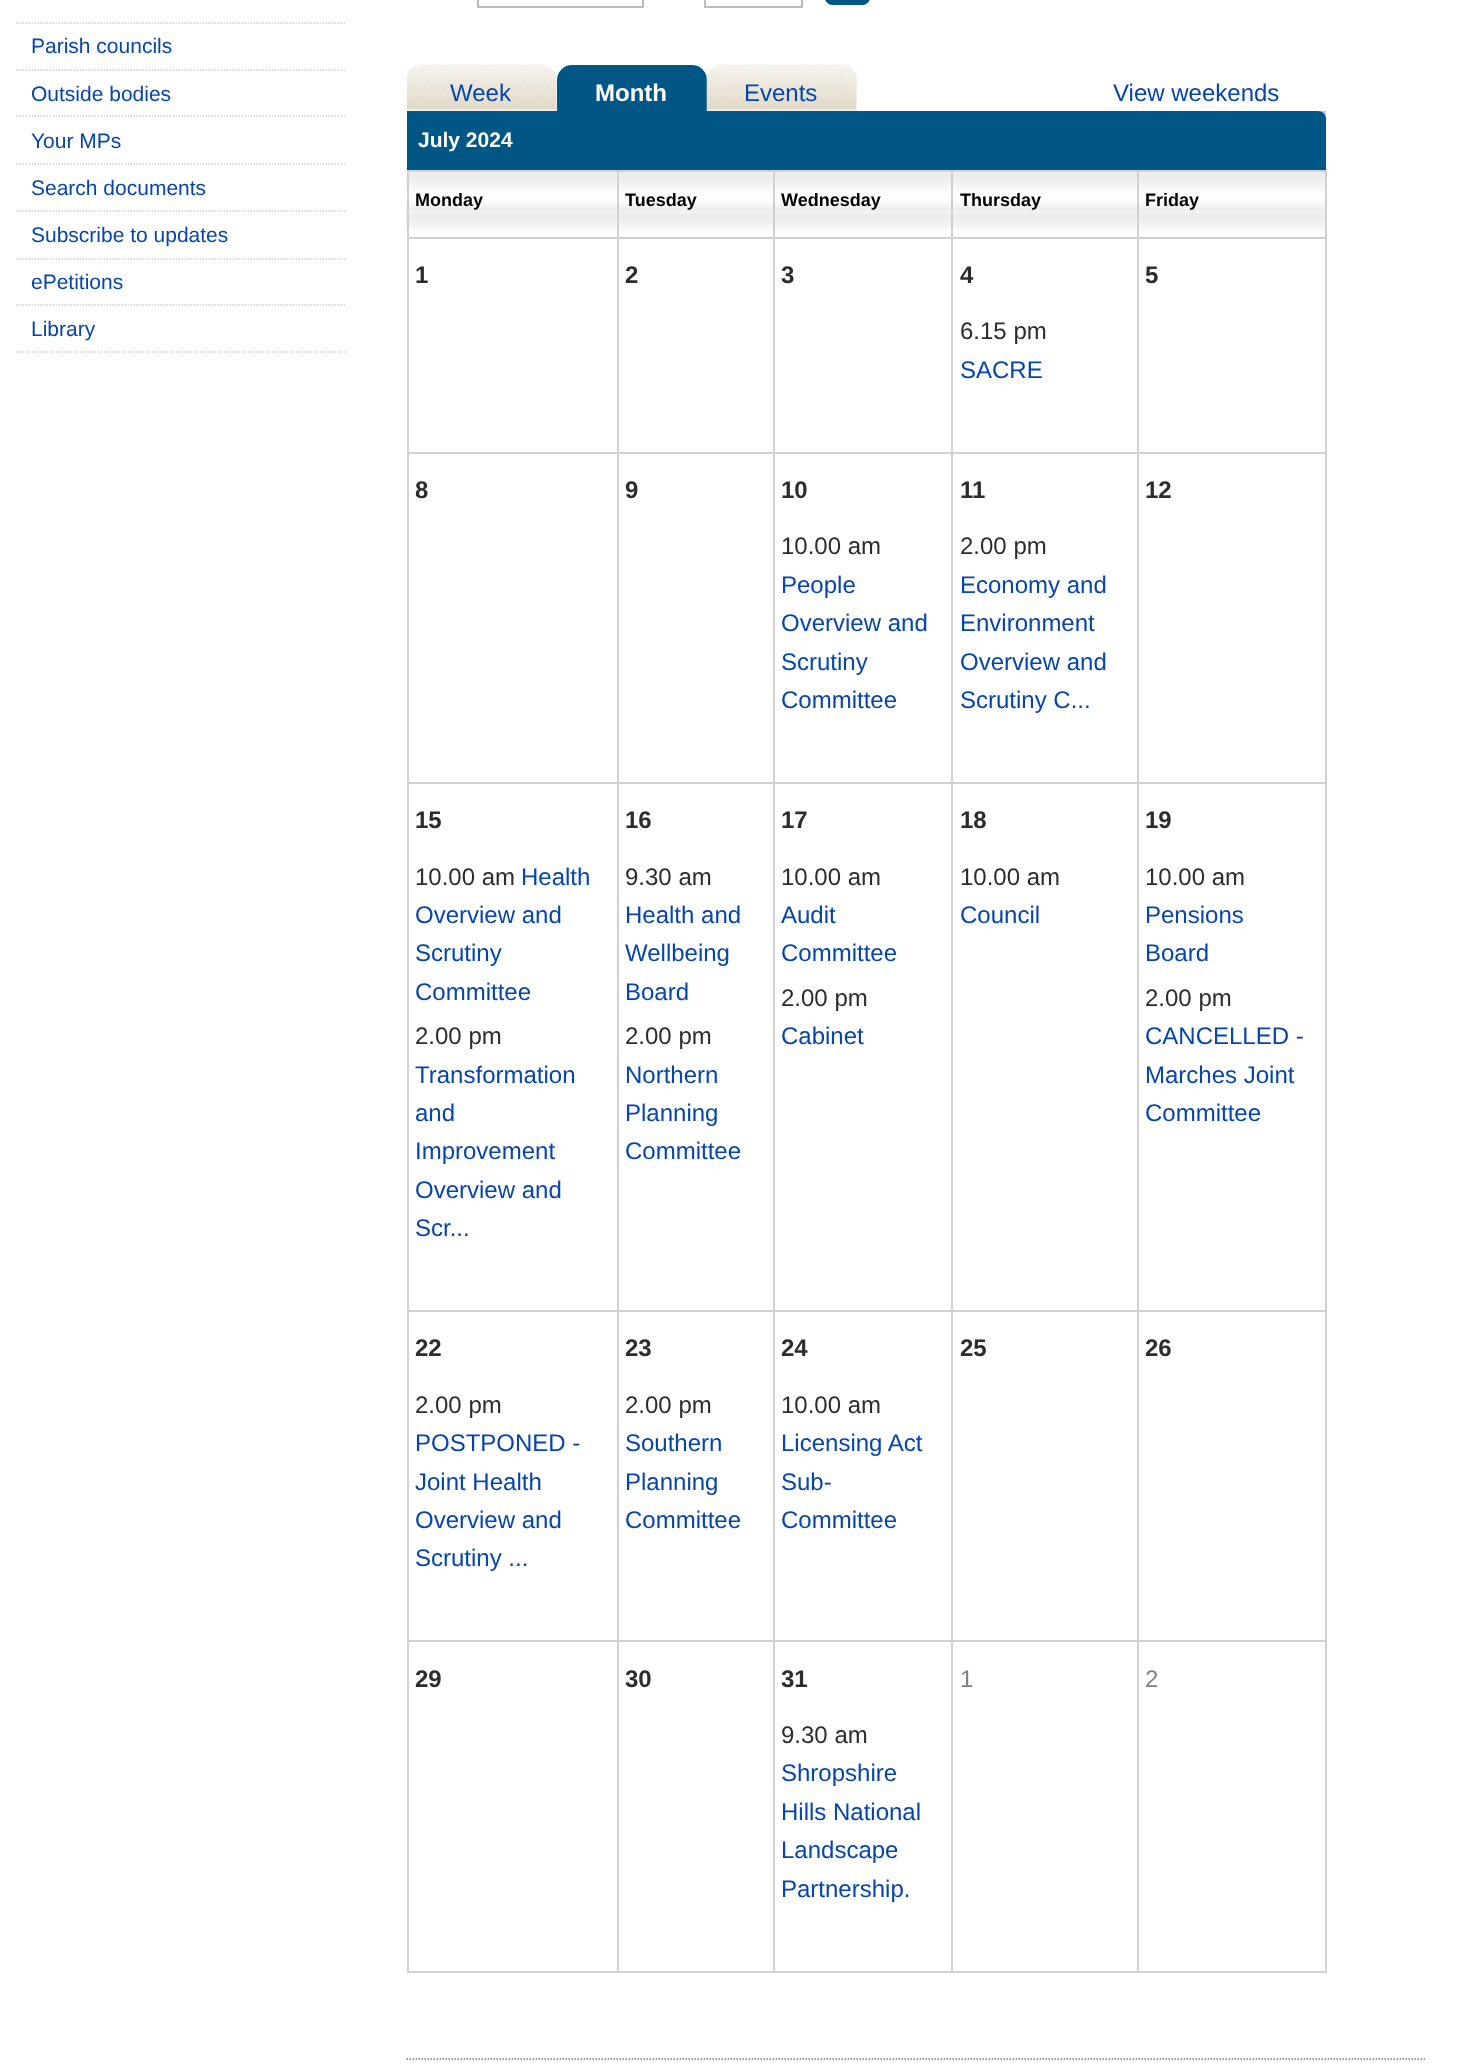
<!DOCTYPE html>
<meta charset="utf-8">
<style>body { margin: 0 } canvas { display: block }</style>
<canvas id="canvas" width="1471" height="2070"></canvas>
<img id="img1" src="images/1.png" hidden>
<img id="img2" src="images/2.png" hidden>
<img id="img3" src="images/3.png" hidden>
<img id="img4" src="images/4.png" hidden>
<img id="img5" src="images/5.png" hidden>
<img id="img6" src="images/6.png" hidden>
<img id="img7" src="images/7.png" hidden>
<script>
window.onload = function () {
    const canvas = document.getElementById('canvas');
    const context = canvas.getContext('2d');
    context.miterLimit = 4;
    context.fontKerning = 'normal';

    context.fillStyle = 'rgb(255, 255, 255)';
    context.fillRect(0, 0, 1471, 2070);
    context.beginPath();
    context.moveTo(16.5, 23);
    context.lineTo(346.5, 23);
    context.strokeStyle = 'rgb(204, 204, 204)';
    context.lineWidth = 1.5;
    context.setLineDash([1.5, 1.5]);
    context.stroke();
    context.beginPath();
    context.moveTo(16.5, 70);
    context.lineTo(346.5, 70);
    context.stroke();
    context.beginPath();
    context.moveTo(16.5, 116);
    context.lineTo(346.5, 116);
    context.stroke();
    context.beginPath();
    context.moveTo(16.5, 164);
    context.lineTo(346.5, 164);
    context.stroke();
    context.beginPath();
    context.moveTo(16.5, 211);
    context.lineTo(346.5, 211);
    context.stroke();
    context.beginPath();
    context.moveTo(16.5, 259);
    context.lineTo(346.5, 259);
    context.stroke();
    context.beginPath();
    context.moveTo(16.5, 305);
    context.lineTo(346.5, 305);
    context.stroke();
    context.beginPath();
    context.moveTo(16.5, 352);
    context.lineTo(346.5, 352);
    context.stroke();
    context.strokeStyle = 'rgb(189, 188, 188)';
    context.lineWidth = 2;
    context.setLineDash([]);
    context.strokeRect(478, -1, 165, 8);
    context.strokeRect(705, -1, 97, 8);
    context.fillStyle = 'rgb(0, 87, 133)';
    context.beginPath();
    context.roundRect(826, -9, 43, 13, 7);
    context.fill();
    context.strokeStyle = 'rgb(0, 87, 133)';
    context.stroke();
    context.fillStyle = 'rgb(243, 243, 243)';
    context.beginPath();
    context.roundRect(407, 65, 150, 46, [15, 15, 0, 0]);
    context.fill();
    context.drawImage(document.getElementById('img1'), 406, 64, 151, 47);
    context.fillStyle = 'rgb(0, 87, 133)';
    context.beginPath();
    context.roundRect(557, 65, 150, 46, [15, 15, 0, 0]);
    context.fill();
    context.fillStyle = 'rgb(243, 243, 243)';
    context.beginPath();
    context.roundRect(707, 65, 150, 46, [15, 15, 0, 0]);
    context.fill();
    context.drawImage(document.getElementById('img2'), 706, 64, 151, 47);
    context.fillStyle = 'rgb(204, 204, 204)';
    context.fillRect(1318, 111, 8, 8);
    context.drawImage(document.getElementById('img3'), 406, 169, 211, 62);
    context.fillStyle = 'rgb(0, 87, 133)';
    context.beginPath();
    context.roundRect(407, 111, 919, 59, [0, 8, 0, 0]);
    context.fill();
    context.fillStyle = 'rgb(209, 209, 209)';
    context.fillRect(1137, 170, 189, 2);
    context.fillRect(1137, 237, 189, 2);
    context.fillRect(1137, 452, 189, 2);
    context.fillRect(1137, 782, 189, 2);
    context.fillRect(1137, 1310, 189, 2);
    context.fillRect(1137, 1640, 189, 2);
    context.fillRect(1325, 1640, 2, 333);
    context.fillRect(1137, 1971, 189, 2);
    context.fillRect(1137, 1640, 2, 333);
    context.fillRect(951, 1640, 188, 2);
    context.fillRect(1137, 1310, 2, 331);
    context.fillRect(951, 1310, 188, 2);
    context.fillRect(1137, 782, 2, 529);
    context.fillRect(951, 782, 188, 2);
    context.fillRect(1137, 452, 2, 331);
    context.fillRect(951, 452, 188, 2);
    context.fillRect(1137, 237, 2, 216);
    context.fillRect(951, 237, 188, 2);
    context.fillRect(1137, 170, 2, 69);
    context.fillRect(951, 170, 188, 2);
    context.fillRect(951, 1971, 188, 2);
    context.fillRect(951, 1640, 2, 333);
    context.fillRect(773, 1640, 180, 2);
    context.fillRect(951, 1310, 2, 331);
    context.fillRect(773, 1310, 180, 2);
    context.fillRect(951, 782, 2, 529);
    context.fillRect(773, 782, 180, 2);
    context.fillRect(951, 452, 2, 331);
    context.fillRect(773, 452, 180, 2);
    context.fillRect(951, 237, 2, 216);
    context.fillRect(773, 237, 180, 2);
    context.fillRect(951, 170, 2, 69);
    context.fillRect(773, 170, 180, 2);
    context.drawImage(document.getElementById('img4'), 616, 172, 157, 59);
    context.drawImage(document.getElementById('img5'), 772, 172, 179, 59);
    context.fillRect(773, 1971, 180, 2);
    context.fillRect(773, 1640, 2, 333);
    context.fillRect(617, 1640, 157, 2);
    context.fillRect(773, 1310, 2, 331);
    context.fillRect(617, 1310, 157, 2);
    context.fillRect(773, 782, 2, 529);
    context.fillRect(617, 782, 157, 2);
    context.fillRect(773, 452, 2, 331);
    context.fillRect(617, 452, 157, 2);
    context.fillRect(773, 237, 2, 216);
    context.fillRect(617, 237, 157, 2);
    context.fillRect(773, 170, 2, 69);
    context.fillRect(617, 170, 157, 2);
    context.fillRect(617, 1971, 157, 2);
    context.fillRect(617, 1640, 2, 333);
    context.fillRect(407, 1640, 211, 2);
    context.fillRect(617, 1310, 2, 331);
    context.fillRect(407, 1310, 211, 2);
    context.fillRect(617, 782, 2, 529);
    context.fillRect(407, 782, 211, 2);
    context.fillRect(617, 452, 2, 331);
    context.fillRect(407, 452, 211, 2);
    context.fillRect(617, 237, 2, 216);
    context.fillRect(407, 237, 211, 2);
    context.fillRect(617, 170, 2, 69);
    context.fillRect(407, 170, 211, 2);
    context.fillRect(407, 1971, 211, 2);
    context.fillRect(407, 1640, 2, 333);
    context.fillRect(407, 1310, 2, 331);
    context.fillRect(407, 782, 2, 529);
    context.fillRect(407, 452, 2, 331);
    context.fillRect(407, 237, 2, 216);
    context.fillRect(407, 170, 2, 69);
    context.drawImage(document.getElementById('img6'), 953, 172, 184, 59);
    context.drawImage(document.getElementById('img7'), 1139, 172, 186, 59);
    context.fillRect(1325, 1310, 2, 331);
    context.fillRect(1325, 782, 2, 529);
    context.fillRect(1325, 452, 2, 331);
    context.fillRect(1325, 237, 2, 216);
    context.fillRect(1325, 170, 2, 69);
    context.beginPath();
    context.moveTo(406.5, 2059);
    context.lineTo(1426.5, 2059);
    context.strokeStyle = 'rgb(119, 119, 119)';
    context.lineWidth = 1.5;
    context.setLineDash([1.5, 1.5]);
    context.stroke();
    context.font = '21px Liberation Sans';
    context.fillStyle = 'rgb(6, 69, 173)';
    context.fillText('Parish councils', 31, 53);
    context.fillText('Outside bodies', 31, 101);
    context.fillText('Your MPs', 31, 148);
    context.fillText('Search documents', 31, 195);
    context.fillText('Subscribe to updates', 31, 242);
    context.fillText('ePetitions', 31, 289);
    context.fillText('Library', 31, 336);
    context.font = '24px Liberation Sans';
    context.fillText('Week', 450, 101);
    context.font = 'bold 24px Liberation Sans';
    context.fillStyle = 'rgb(255, 255, 255)';
    context.fillText('Month', 595, 101);
    context.font = '24px Liberation Sans';
    context.fillStyle = 'rgb(6, 69, 173)';
    context.fillText('Events', 744, 101);
    context.fillText('View weekends', 1113, 101);
    context.font = 'bold 21px Liberation Sans';
    context.fillStyle = 'rgb(255, 255, 255)';
    context.fillText('July 2024', 418, 147);
    context.font = 'bold 18px Liberation Sans';
    context.fillStyle = 'rgb(0, 0, 0)';
    context.fillText('Monday', 415, 206);
    context.fillText('Tuesday', 625, 206);
    context.fillText('Wednesday', 781, 206);
    context.fillText('Thursday', 960, 206);
    context.fillText('Friday', 1145, 206);
    context.font = 'bold 24px Liberation Sans';
    context.fillStyle = 'rgb(44, 44, 44)';
    context.fillText('1', 415, 283);
    context.fillText('2', 625, 283);
    context.fillText('3', 781, 283);
    context.fillText('4', 960, 283);
    context.font = '24px Liberation Sans';
    context.fillText('6.15 pm', 960, 339);
    context.fillStyle = 'rgb(6, 69, 173)';
    context.fillText('SACRE', 960, 378);
    context.font = 'bold 24px Liberation Sans';
    context.fillStyle = 'rgb(44, 44, 44)';
    context.fillText('5', 1145, 283);
    context.fillText('8', 415, 498);
    context.fillText('9', 625, 498);
    context.fillText('10', 781, 498);
    context.font = '24px Liberation Sans';
    context.fillText('10.00 am', 781, 554);
    context.fillStyle = 'rgb(6, 69, 173)';
    context.fillText('People', 781, 593);
    context.fillText('Overview and', 781, 631);
    context.fillText('Scrutiny', 781, 670);
    context.fillText('Committee', 781, 708);
    context.font = 'bold 24px Liberation Sans';
    context.fillStyle = 'rgb(44, 44, 44)';
    context.fillText('11', 960, 498);
    context.font = '24px Liberation Sans';
    context.fillText('2.00 pm', 960, 554);
    context.fillStyle = 'rgb(6, 69, 173)';
    context.fillText('Economy and', 960, 593);
    context.fillText('Environment', 960, 631);
    context.fillText('Overview and', 960, 670);
    context.fillText('Scrutiny C...', 960, 708);
    context.font = 'bold 24px Liberation Sans';
    context.fillStyle = 'rgb(44, 44, 44)';
    context.fillText('12', 1145, 498);
    context.fillText('15', 415, 828);
    context.font = '24px Liberation Sans';
    context.fillText('10.00 am', 415, 885);
    context.fillStyle = 'rgb(6, 69, 173)';
    context.fillText('Health', 521, 885);
    context.fillText('Overview and', 415, 923);
    context.fillText('Scrutiny', 415, 961);
    context.fillText('Committee', 415, 1000);
    context.fillStyle = 'rgb(44, 44, 44)';
    context.fillText('2.00 pm', 415, 1044);
    context.fillStyle = 'rgb(6, 69, 173)';
    context.fillText('Transformation', 415, 1083);
    context.fillText('and', 415, 1121);
    context.fillText('Improvement', 415, 1159);
    context.fillText('Overview and', 415, 1198);
    context.fillText('Scr...', 415, 1236);
    context.font = 'bold 24px Liberation Sans';
    context.fillStyle = 'rgb(44, 44, 44)';
    context.fillText('16', 625, 828);
    context.font = '24px Liberation Sans';
    context.fillText('9.30 am', 625, 885);
    context.fillStyle = 'rgb(6, 69, 173)';
    context.fillText('Health and', 625, 923);
    context.fillText('Wellbeing', 625, 961);
    context.fillText('Board', 625, 1000);
    context.fillStyle = 'rgb(44, 44, 44)';
    context.fillText('2.00 pm', 625, 1044);
    context.fillStyle = 'rgb(6, 69, 173)';
    context.fillText('Northern', 625, 1083);
    context.fillText('Planning', 625, 1121);
    context.fillText('Committee', 625, 1159);
    context.font = 'bold 24px Liberation Sans';
    context.fillStyle = 'rgb(44, 44, 44)';
    context.fillText('17', 781, 828);
    context.font = '24px Liberation Sans';
    context.fillText('10.00 am', 781, 885);
    context.fillStyle = 'rgb(6, 69, 173)';
    context.fillText('Audit', 781, 923);
    context.fillText('Committee', 781, 961);
    context.fillStyle = 'rgb(44, 44, 44)';
    context.fillText('2.00 pm', 781, 1006);
    context.fillStyle = 'rgb(6, 69, 173)';
    context.fillText('Cabinet', 781, 1044);
    context.font = 'bold 24px Liberation Sans';
    context.fillStyle = 'rgb(44, 44, 44)';
    context.fillText('18', 960, 828);
    context.font = '24px Liberation Sans';
    context.fillText('10.00 am', 960, 885);
    context.fillStyle = 'rgb(6, 69, 173)';
    context.fillText('Council', 960, 923);
    context.font = 'bold 24px Liberation Sans';
    context.fillStyle = 'rgb(44, 44, 44)';
    context.fillText('19', 1145, 828);
    context.font = '24px Liberation Sans';
    context.fillText('10.00 am', 1145, 885);
    context.fillStyle = 'rgb(6, 69, 173)';
    context.fillText('Pensions', 1145, 923);
    context.fillText('Board', 1145, 961);
    context.fillStyle = 'rgb(44, 44, 44)';
    context.fillText('2.00 pm', 1145, 1006);
    context.fillStyle = 'rgb(6, 69, 173)';
    context.fillText('CANCELLED -', 1145, 1044);
    context.fillText('Marches Joint', 1145, 1083);
    context.fillText('Committee', 1145, 1121);
    context.font = 'bold 24px Liberation Sans';
    context.fillStyle = 'rgb(44, 44, 44)';
    context.fillText('22', 415, 1356);
    context.font = '24px Liberation Sans';
    context.fillText('2.00 pm', 415, 1413);
    context.fillStyle = 'rgb(6, 69, 173)';
    context.fillText('POSTPONED -', 415, 1451);
    context.fillText('Joint Health', 415, 1490);
    context.fillText('Overview and', 415, 1528);
    context.fillText('Scrutiny ...', 415, 1566);
    context.font = 'bold 24px Liberation Sans';
    context.fillStyle = 'rgb(44, 44, 44)';
    context.fillText('23', 625, 1356);
    context.font = '24px Liberation Sans';
    context.fillText('2.00 pm', 625, 1413);
    context.fillStyle = 'rgb(6, 69, 173)';
    context.fillText('Southern', 625, 1451);
    context.fillText('Planning', 625, 1490);
    context.fillText('Committee', 625, 1528);
    context.font = 'bold 24px Liberation Sans';
    context.fillStyle = 'rgb(44, 44, 44)';
    context.fillText('24', 781, 1356);
    context.font = '24px Liberation Sans';
    context.fillText('10.00 am', 781, 1413);
    context.fillStyle = 'rgb(6, 69, 173)';
    context.fillText('Licensing Act', 781, 1451);
    context.fillText('Sub-', 781, 1490);
    context.fillText('Committee', 781, 1528);
    context.font = 'bold 24px Liberation Sans';
    context.fillStyle = 'rgb(44, 44, 44)';
    context.fillText('25', 960, 1356);
    context.fillText('26', 1145, 1356);
    context.fillText('29', 415, 1687);
    context.fillText('30', 625, 1687);
    context.fillText('31', 781, 1687);
    context.font = '24px Liberation Sans';
    context.fillText('9.30 am', 781, 1743);
    context.fillStyle = 'rgb(6, 69, 173)';
    context.fillText('Shropshire', 781, 1781);
    context.fillText('Hills National', 781, 1820);
    context.fillText('Landscape', 781, 1858);
    context.fillText('Partnership.', 781, 1897);
    context.fillStyle = 'rgb(128, 128, 128)';
    context.fillText('1', 960, 1687);
    context.fillText('2', 1145, 1687);
};
</script>
